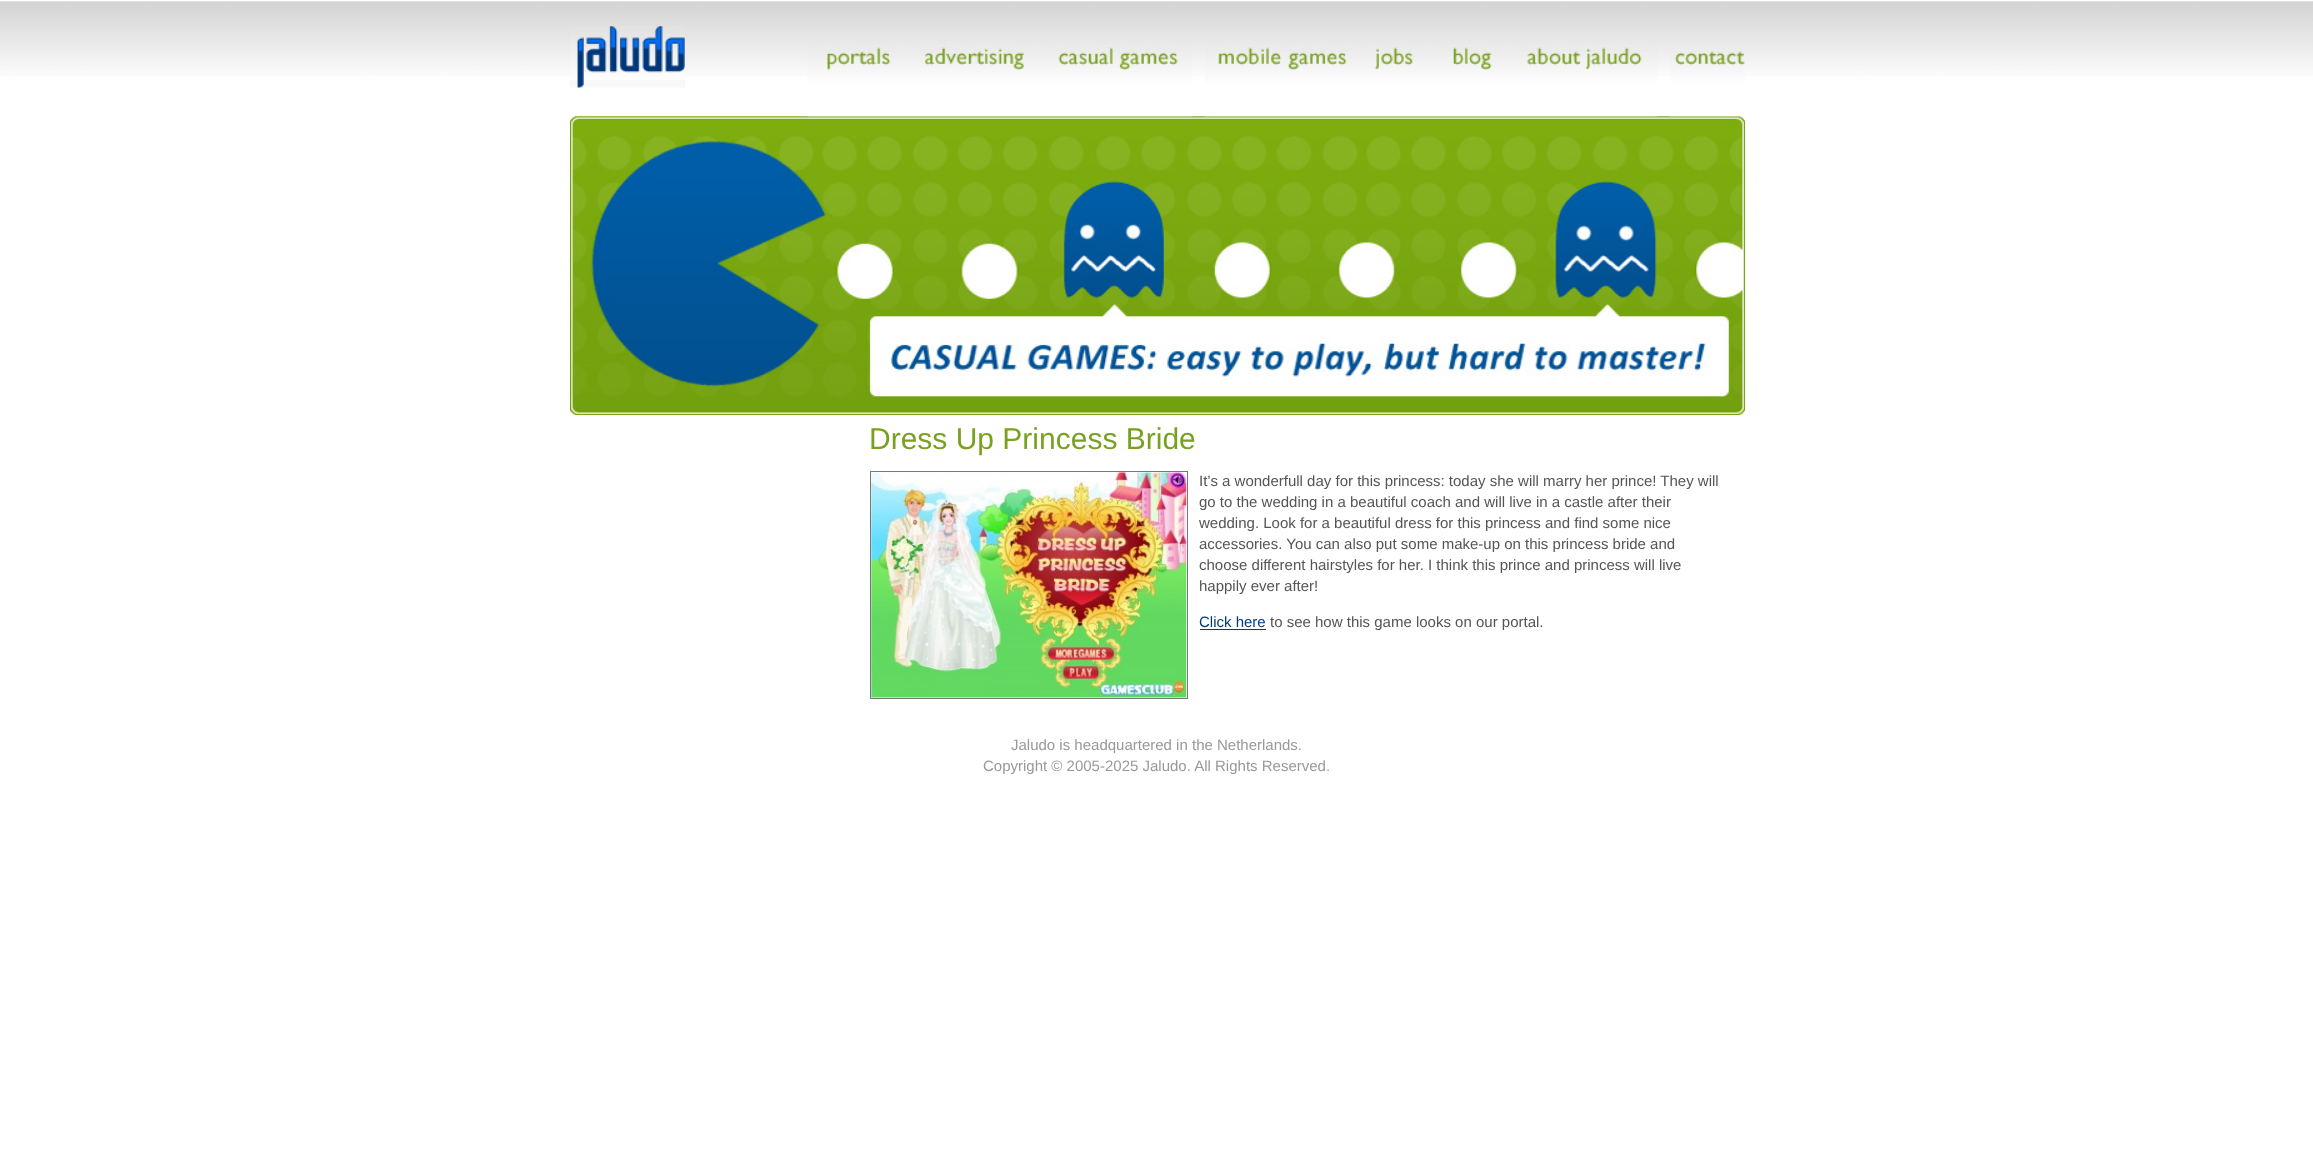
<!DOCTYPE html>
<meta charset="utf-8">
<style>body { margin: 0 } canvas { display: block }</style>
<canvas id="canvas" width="2313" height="1170"></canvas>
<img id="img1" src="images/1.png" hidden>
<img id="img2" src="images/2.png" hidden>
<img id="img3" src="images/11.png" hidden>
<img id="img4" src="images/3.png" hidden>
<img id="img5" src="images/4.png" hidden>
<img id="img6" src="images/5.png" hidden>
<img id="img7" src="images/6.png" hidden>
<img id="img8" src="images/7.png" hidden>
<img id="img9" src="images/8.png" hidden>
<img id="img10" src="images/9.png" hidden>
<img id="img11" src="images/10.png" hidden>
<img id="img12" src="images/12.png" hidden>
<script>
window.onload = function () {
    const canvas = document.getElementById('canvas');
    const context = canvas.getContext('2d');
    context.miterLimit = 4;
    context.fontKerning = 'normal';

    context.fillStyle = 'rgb(255, 255, 255)';
    context.fillRect(0, 0, 2313, 1170);
    context.drawImage(document.getElementById('img1'), 0, 1, 2313, 75);
    context.drawImage(document.getElementById('img2'), 570, 26, 115, 62);
    context.drawImage(document.getElementById('img3'), 570, 116, 1175, 299);
    context.drawImage(document.getElementById('img4'), 807, 47, 101, 70);
    context.drawImage(document.getElementById('img5'), 907, 47, 136, 70);
    context.drawImage(document.getElementById('img6'), 1042, 47, 151, 70);
    context.drawImage(document.getElementById('img7'), 1205, 47, 150, 70);
    context.drawImage(document.getElementById('img8'), 1355, 47, 78, 70);
    context.drawImage(document.getElementById('img9'), 1432, 47, 78, 70);
    context.drawImage(document.getElementById('img10'), 1510, 47, 148, 70);
    context.drawImage(document.getElementById('img11'), 1670, 51, 75, 66);
    context.strokeStyle = 'rgb(119, 119, 119)';
    context.strokeRect(870.5, 471.5, 317, 227);
    context.drawImage(document.getElementById('img12'), 871, 472, 316, 226);
    context.fillStyle = 'rgb(0, 60, 123)';
    context.fillRect(1200, 629, 66, 1);
    context.font = '30px Liberation Sans';
    context.fillStyle = 'rgb(121, 161, 33)';
    context.fillText('Dress Up Princess Bride', 869, 449);
    context.font = '15px Liberation Sans';
    context.fillStyle = 'rgb(85, 85, 85)';
    context.fillText('It’s a wonderfull day for this princess: today she will marry her prince! They will', 1199, 486);
    context.fillText('go to the wedding in a beautiful coach and will live in a castle after their', 1199, 507);
    context.fillText('wedding. Look for a beautiful dress for this princess and find some nice', 1199, 528);
    context.fillText('accessories. You can also put some make-up on this princess bride and', 1199, 549);
    context.fillText('choose different hairstyles for her. I think this prince and princess will live', 1199, 570);
    context.fillText('happily ever after!', 1199, 591);
    context.fillStyle = 'rgb(0, 60, 123)';
    context.fillText('Click here', 1199, 627);
    context.fillStyle = 'rgb(85, 85, 85)';
    context.fillText('to see how this game looks on our portal.', 1270, 627);
    context.fillStyle = 'rgb(153, 153, 153)';
    context.fillText('Jaludo is headquartered in the Netherlands.', 1011, 750);
    context.fillText('Copyright © 2005-2025 Jaludo. All Rights Reserved.', 983, 771);
};
</script>
